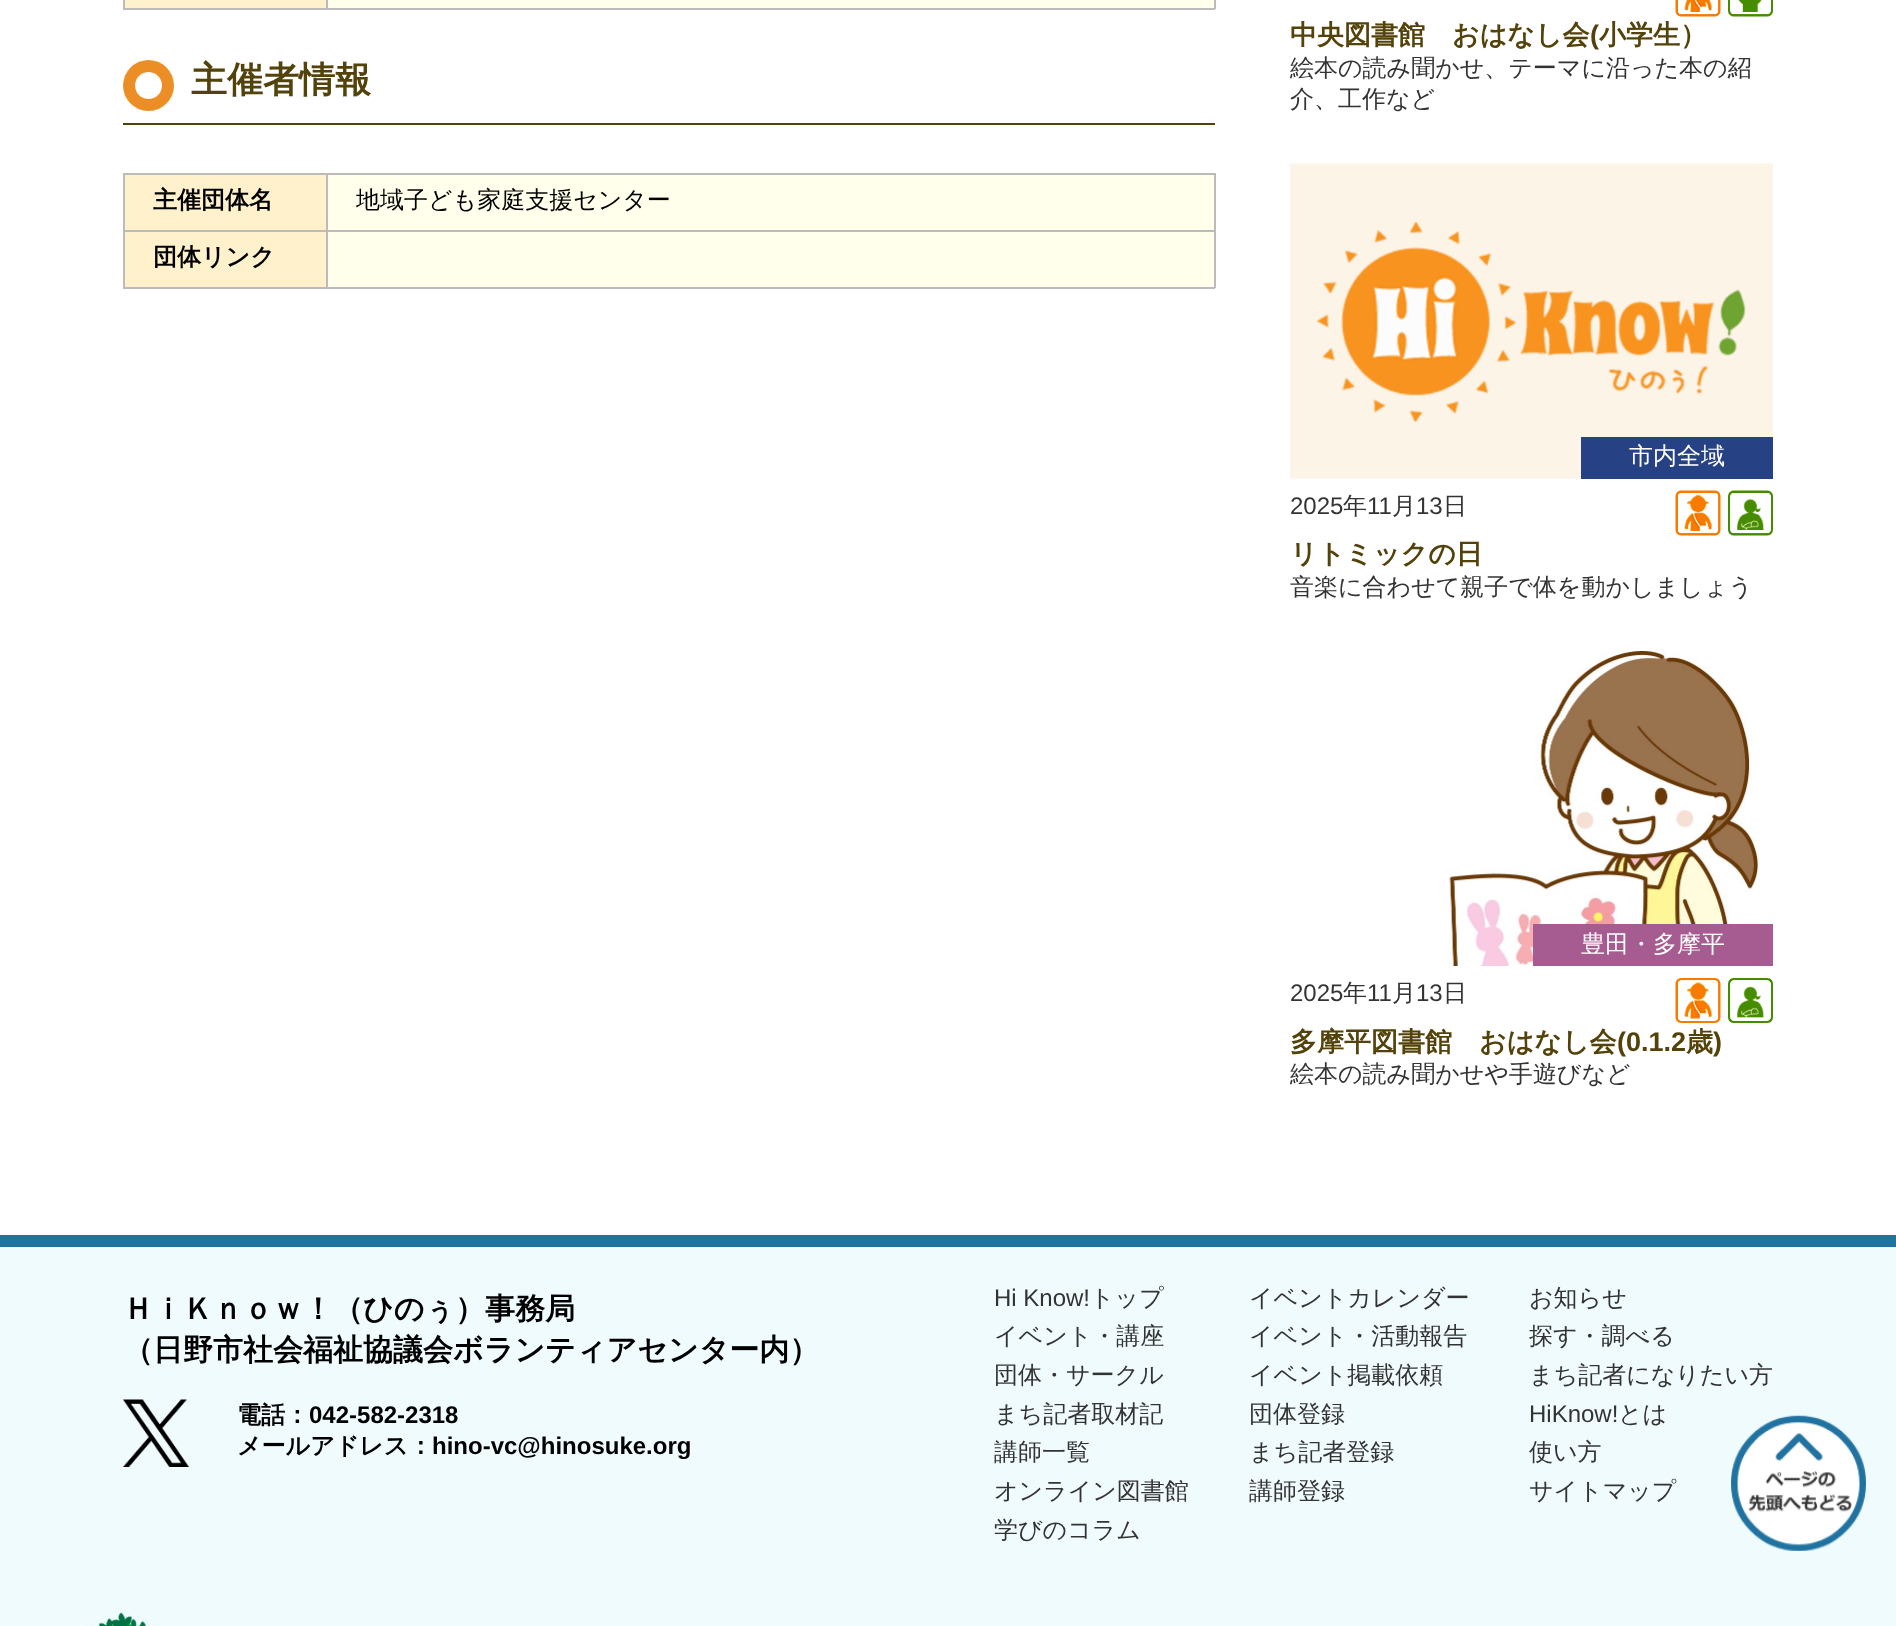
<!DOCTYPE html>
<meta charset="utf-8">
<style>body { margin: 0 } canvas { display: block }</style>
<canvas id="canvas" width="1896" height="1626"></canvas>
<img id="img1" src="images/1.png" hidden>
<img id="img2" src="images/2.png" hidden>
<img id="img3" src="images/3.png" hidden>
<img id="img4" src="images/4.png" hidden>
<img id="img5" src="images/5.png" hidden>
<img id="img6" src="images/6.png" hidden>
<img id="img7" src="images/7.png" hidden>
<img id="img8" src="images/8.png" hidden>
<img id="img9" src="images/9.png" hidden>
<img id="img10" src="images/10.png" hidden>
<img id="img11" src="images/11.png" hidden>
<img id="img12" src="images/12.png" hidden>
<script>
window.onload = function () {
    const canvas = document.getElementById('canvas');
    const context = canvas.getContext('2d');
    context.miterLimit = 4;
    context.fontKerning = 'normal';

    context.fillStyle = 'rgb(255, 255, 255)';
    context.fillRect(0, 0, 1896, 1626);
    context.fillStyle = 'rgb(255, 255, 235)';
    context.fillRect(328, 0, 887, 8);
    context.fillStyle = 'rgb(255, 241, 204)';
    context.fillRect(125, 0, 202, 8);
    context.fillStyle = 'rgb(187, 187, 187)';
    context.fillRect(1214, 0, 2, 9);
    context.fillRect(326, 8, 889, 2);
    context.fillRect(326, 0, 2, 9);
    context.fillRect(123, 8, 204, 2);
    context.fillRect(123, 0, 2, 9);
    context.drawImage(document.getElementById('img1'), 123, 60, 51, 51);
    context.fillStyle = 'rgb(83, 66, 10)';
    context.fillRect(123, 123, 1092, 2);
    context.fillStyle = 'rgb(255, 255, 235)';
    context.fillRect(328, 175, 886, 55);
    context.fillStyle = 'rgb(255, 241, 204)';
    context.fillRect(125, 175, 201, 55);
    context.fillStyle = 'rgb(187, 187, 187)';
    context.fillRect(326, 173, 889, 2);
    context.fillRect(326, 230, 889, 2);
    context.fillRect(1214, 230, 2, 58);
    context.fillRect(326, 287, 889, 2);
    context.fillRect(326, 230, 2, 58);
    context.fillRect(123, 230, 204, 2);
    context.fillRect(326, 173, 2, 58);
    context.fillRect(123, 173, 204, 2);
    context.fillRect(123, 287, 204, 2);
    context.fillRect(123, 230, 2, 58);
    context.fillRect(123, 173, 2, 58);
    context.fillRect(1214, 173, 2, 58);
    context.fillStyle = 'rgb(255, 255, 235)';
    context.fillRect(328, 232, 886, 55);
    context.fillStyle = 'rgb(255, 241, 204)';
    context.fillRect(125, 232, 201, 55);
    context.drawImage(document.getElementById('img2'), 1675, 0, 46, 17);
    context.drawImage(document.getElementById('img3'), 1728, 0, 45, 17);
    context.drawImage(document.getElementById('img4'), 1290, 163, 483, 316);
    context.fillStyle = 'rgb(39, 66, 132)';
    context.fillRect(1581, 437, 192, 42);
    context.drawImage(document.getElementById('img5'), 1675, 490, 46, 46);
    context.drawImage(document.getElementById('img6'), 1728, 490, 45, 46);
    context.drawImage(document.getElementById('img7'), 1449, 651, 312, 315);
    context.fillStyle = 'rgb(166, 92, 144)';
    context.fillRect(1533, 924, 240, 42);
    context.drawImage(document.getElementById('img8'), 1675, 978, 46, 45);
    context.drawImage(document.getElementById('img9'), 1728, 978, 45, 45);
    context.drawImage(document.getElementById('img10'), 0, 1247, 1896, 379);
    context.fillStyle = 'rgb(32, 114, 160)';
    context.fillRect(0, 1235, 1896, 12);
    context.drawImage(document.getElementById('img11'), 123, 1399, 66, 68);
    context.drawImage(document.getElementById('img12'), 1731, 1415, 135, 136);
    context.font = 'bold 36px WenQuanYi Zen Hei';
    context.fillStyle = 'rgb(83, 66, 10)';
    context.fillText('主催者情報', 191, 92);
    context.font = 'bold 24px WenQuanYi Zen Hei';
    context.fillStyle = 'rgb(0, 0, 0)';
    context.fillText('主催団体名', 153, 208);
    context.font = '500 24px WenQuanYi Zen Hei';
    context.fillText('地域子ども家庭支援センター', 356, 208);
    context.font = 'bold 24px WenQuanYi Zen Hei';
    context.fillText('団体リンク', 153, 265);
    context.font = 'bold 27px WenQuanYi Zen Hei';
    context.fillStyle = 'rgb(83, 66, 10)';
    context.fillText('中央図書館　おはなし会', 1290, 44);
    context.font = 'bold 27px Liberation Sans';
    context.fillText('(', 1590, 44);
    context.font = 'bold 27px WenQuanYi Zen Hei';
    context.fillText('小学生）', 1599, 44);
    context.font = '500 24px WenQuanYi Zen Hei';
    context.fillStyle = 'rgb(51, 51, 51)';
    context.fillText('絵本の読み聞かせ、テーマに沿った本の紹', 1290, 76);
    context.fillText('介、工作など', 1290, 107);
    context.fillStyle = 'rgb(255, 255, 255)';
    context.fillText('市内全域', 1629, 464);
    context.font = '24px Liberation Sans';
    context.fillStyle = 'rgb(51, 51, 51)';
    context.fillText('2025', 1290, 514);
    context.font = '500 24px WenQuanYi Zen Hei';
    context.fillText('年', 1343, 514);
    context.font = '24px Liberation Sans';
    context.fillText('11', 1367, 514);
    context.font = '500 24px WenQuanYi Zen Hei';
    context.fillText('月', 1392, 514);
    context.font = '24px Liberation Sans';
    context.fillText('13', 1416, 514);
    context.font = '500 24px WenQuanYi Zen Hei';
    context.fillText('日', 1443, 514);
    context.font = 'bold 27px WenQuanYi Zen Hei';
    context.fillStyle = 'rgb(83, 66, 10)';
    context.fillText('リトミックの日', 1290, 563);
    context.font = '500 24px WenQuanYi Zen Hei';
    context.fillStyle = 'rgb(51, 51, 51)';
    context.fillText('音楽に合わせて親子で体を動かしましょう', 1290, 595);
    context.fillStyle = 'rgb(255, 255, 255)';
    context.fillText('豊田・多摩平', 1581, 952);
    context.font = '24px Liberation Sans';
    context.fillStyle = 'rgb(51, 51, 51)';
    context.fillText('2025', 1290, 1001);
    context.font = '500 24px WenQuanYi Zen Hei';
    context.fillText('年', 1343, 1001);
    context.font = '24px Liberation Sans';
    context.fillText('11', 1367, 1001);
    context.font = '500 24px WenQuanYi Zen Hei';
    context.fillText('月', 1392, 1001);
    context.font = '24px Liberation Sans';
    context.fillText('13', 1416, 1001);
    context.font = '500 24px WenQuanYi Zen Hei';
    context.fillText('日', 1443, 1001);
    context.font = 'bold 27px WenQuanYi Zen Hei';
    context.fillStyle = 'rgb(83, 66, 10)';
    context.fillText('多摩平図書館　おはなし会', 1290, 1051);
    context.font = 'bold 27px Liberation Sans';
    context.fillText('(0.1.2', 1617, 1051);
    context.font = 'bold 27px WenQuanYi Zen Hei';
    context.fillText('歳', 1686, 1051);
    context.font = 'bold 27px Liberation Sans';
    context.fillText(')', 1713, 1051);
    context.font = '500 24px WenQuanYi Zen Hei';
    context.fillStyle = 'rgb(51, 51, 51)';
    context.fillText('絵本の読み聞かせや手遊びなど', 1290, 1082);
    context.font = 'bold 30px WenQuanYi Zen Hei';
    context.fillStyle = 'rgb(0, 0, 0)';
    context.fillText('ＨｉＫｎｏｗ！（ひのぅ）事務局', 123, 1319);
    context.fillText('（日野市社会福祉協議会ボランティアセンター内）', 123, 1360);
    context.font = 'bold 24px WenQuanYi Zen Hei';
    context.fillText('電話：', 237, 1423);
    context.font = 'bold 24px Liberation Sans';
    context.fillText('042-582-2318', 309, 1423);
    context.font = 'bold 24px WenQuanYi Zen Hei';
    context.fillText('メールアドレス：', 237, 1454);
    context.font = 'bold 24px Liberation Sans';
    context.fillText('hino-vc@hinosuke.org', 432, 1454);
    context.font = '24px Liberation Sans';
    context.fillStyle = 'rgb(51, 51, 51)';
    context.fillText('Hi Know!', 994, 1306);
    context.font = '500 24px WenQuanYi Zen Hei';
    context.fillText('トップ', 1090, 1306);
    context.fillText('イベント・講座', 994, 1344);
    context.fillText('団体・サークル', 994, 1383);
    context.fillText('まち記者取材記', 994, 1422);
    context.fillText('講師一覧', 994, 1460);
    context.fillText('オンライン図書館', 994, 1499);
    context.fillText('学びのコラム', 994, 1538);
    context.fillText('イベントカレンダー', 1249, 1306);
    context.fillText('イベント・活動報告', 1249, 1344);
    context.fillText('イベント掲載依頼', 1249, 1383);
    context.fillText('団体登録', 1249, 1422);
    context.fillText('まち記者登録', 1249, 1460);
    context.fillText('講師登録', 1249, 1499);
    context.fillText('お知らせ', 1529, 1306);
    context.fillText('探す・調べる', 1529, 1344);
    context.fillText('まち記者になりたい方', 1529, 1383);
    context.font = '24px Liberation Sans';
    context.fillText('HiKnow!', 1529, 1422);
    context.font = '500 24px WenQuanYi Zen Hei';
    context.fillText('とは', 1618, 1422);
    context.fillText('使い方', 1529, 1460);
    context.fillText('サイトマップ', 1529, 1499);
};
</script>
